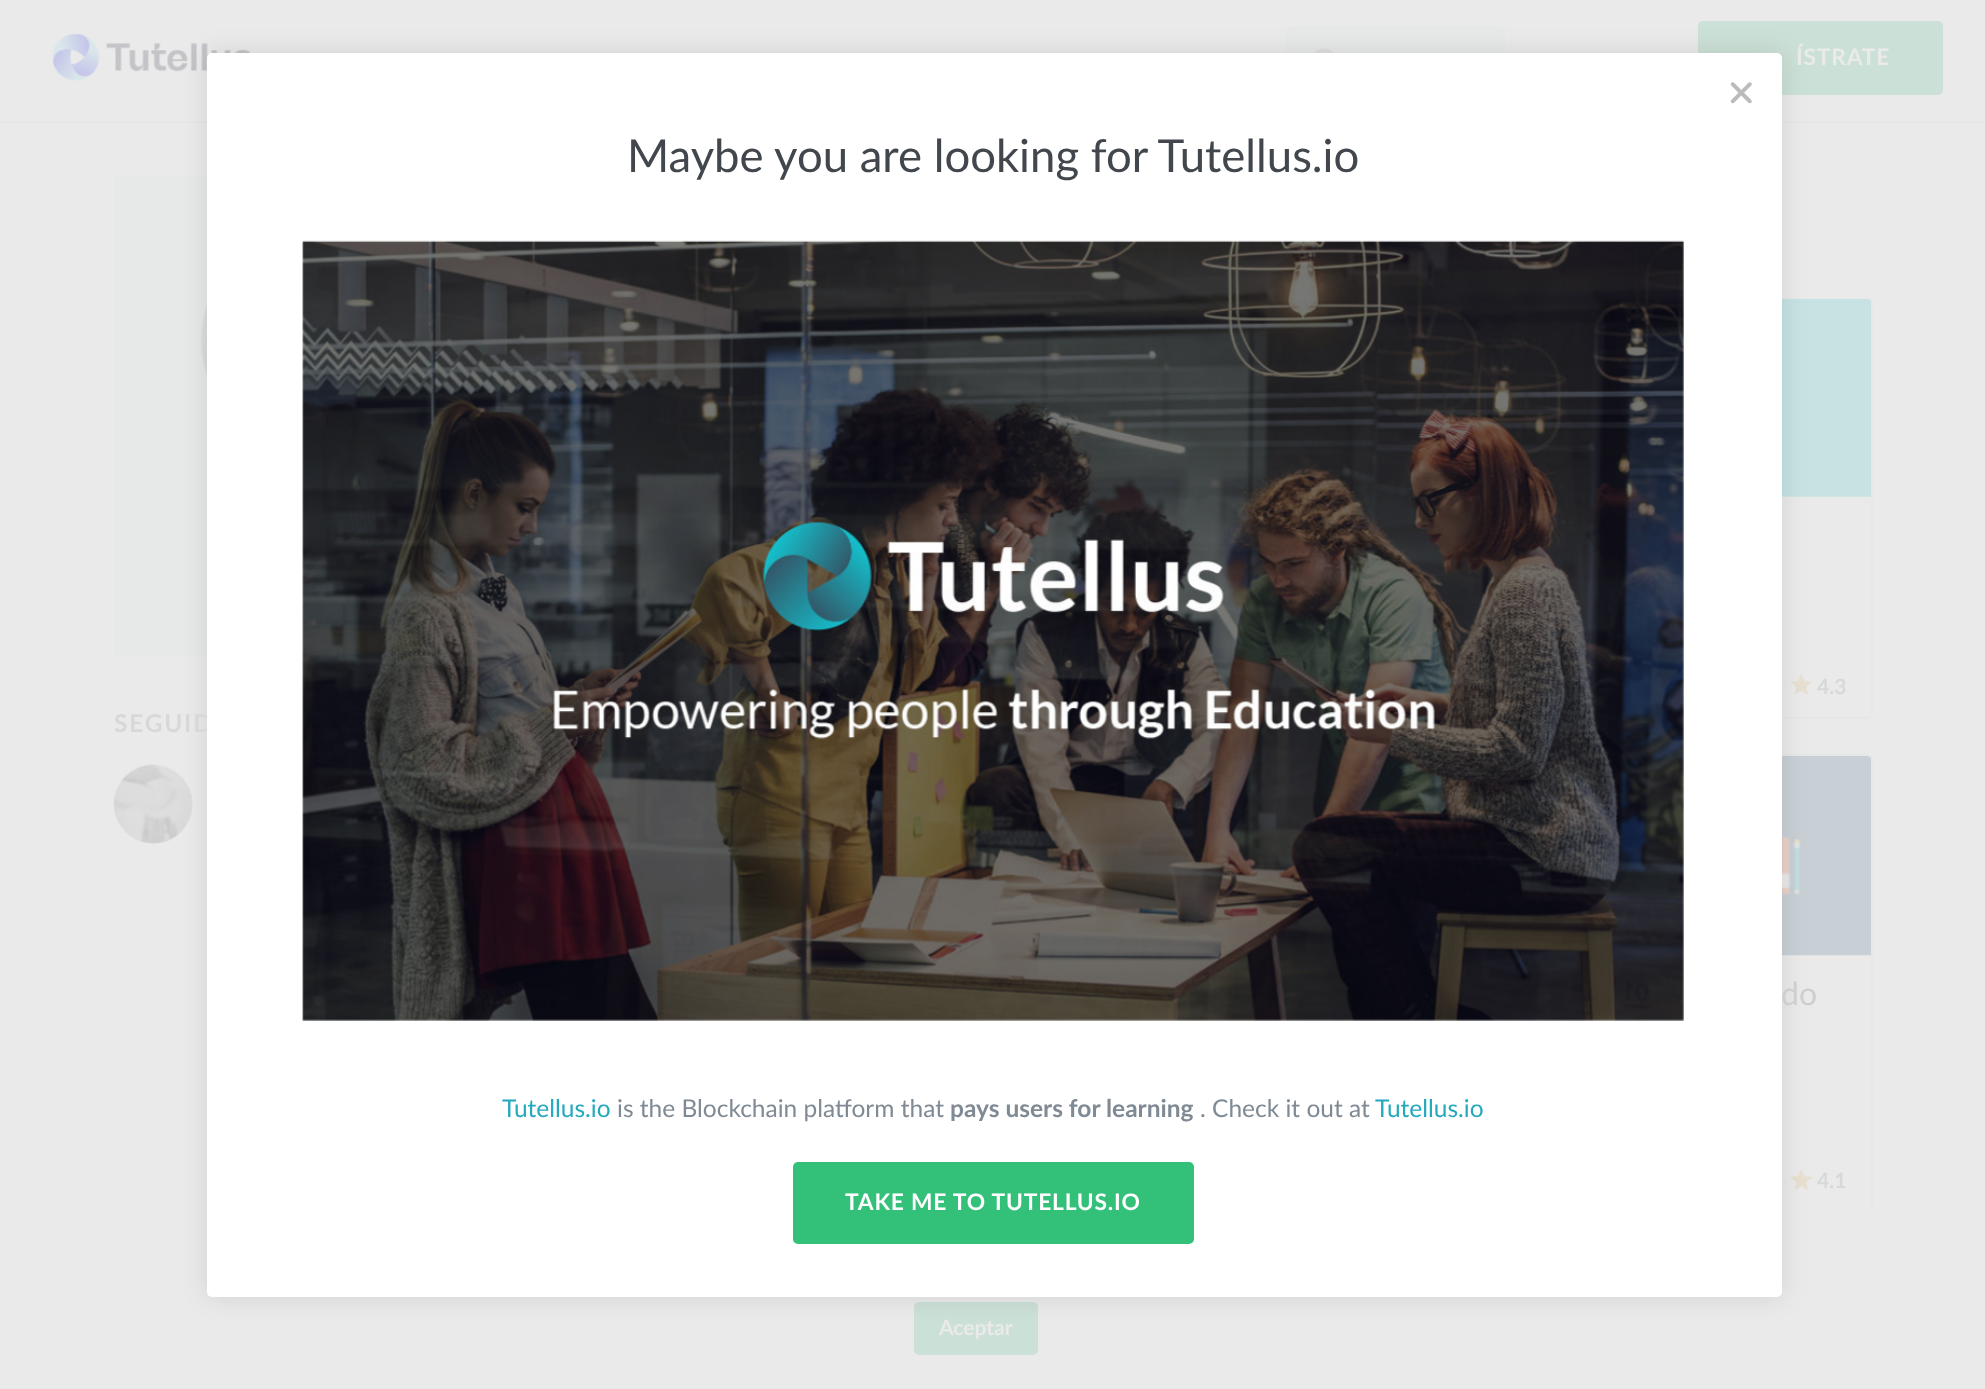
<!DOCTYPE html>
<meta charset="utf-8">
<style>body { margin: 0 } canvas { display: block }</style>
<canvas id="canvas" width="1985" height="1389"></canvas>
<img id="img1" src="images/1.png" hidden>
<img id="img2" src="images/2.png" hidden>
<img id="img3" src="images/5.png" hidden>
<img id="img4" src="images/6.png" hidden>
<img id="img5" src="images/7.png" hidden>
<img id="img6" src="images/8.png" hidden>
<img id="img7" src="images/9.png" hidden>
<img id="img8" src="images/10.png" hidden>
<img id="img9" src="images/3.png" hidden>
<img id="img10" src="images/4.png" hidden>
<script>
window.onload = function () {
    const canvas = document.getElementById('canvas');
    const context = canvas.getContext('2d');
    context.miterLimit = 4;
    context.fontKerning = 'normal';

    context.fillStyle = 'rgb(234, 234, 234)';
    context.fillRect(0, 0, 1985, 1389);
    context.fillStyle = 'rgb(230, 231, 231)';
    context.fillRect(0, 121, 1985, 2);
    context.drawImage(document.getElementById('img1'), 52, 33, 199, 48);
    context.fillStyle = 'rgb(231, 232, 232)';
    context.beginPath();
    context.roundRect(1286, 26, 219, 70, 5);
    context.fill();
    context.drawImage(document.getElementById('img2'), 1314, 48, 20, 5);
    context.fillStyle = 'rgb(203, 224, 214)';
    context.beginPath();
    context.roundRect(1698, 21, 245, 74, 5);
    context.fill();
    context.fillStyle = 'rgb(231, 232, 232)';
    context.beginPath();
    context.roundRect(114, 175, 401, 481, 5);
    context.fill();
    context.drawImage(document.getElementById('img3'), 201, 304, 6, 73);
    context.drawImage(document.getElementById('img4'), 113, 764, 80, 80);
    context.beginPath();
    context.roundRect(1473, 299, 399, 419, 4);
    context.strokeStyle = 'rgb(230, 231, 231)';
    context.lineWidth = 2;
    context.stroke();
    context.drawImage(document.getElementById('img5'), 1782, 299, 89, 198);
    context.drawImage(document.getElementById('img6'), 1790, 673, 23, 22);
    context.beginPath();
    context.roundRect(1473, 755, 399, 459, 4);
    context.stroke();
    context.drawImage(document.getElementById('img7'), 1782, 756, 89, 200);
    context.drawImage(document.getElementById('img8'), 1790, 1169, 23, 21);
    context.fillStyle = 'rgb(234, 234, 234)';
    context.fillRect(1472, 1211, 401, 4);
    context.fillStyle = 'rgb(203, 224, 214)';
    context.beginPath();
    context.roundRect(914, 1302, 124, 53, 5);
    context.fill();
    context.fillStyle = 'rgba(0, 0, 0, 0.1)';
    context.filter = 'blur(13px)';
    context.beginPath();
    context.roundRect(207, 53, 1575, 1244, 5);
    context.fill();
    context.filter = 'none';
    context.letterSpacing = '0.8px';
    context.font = 'bold 22.75px Lato';
    context.fillStyle = 'rgb(234, 234, 234)';
    context.fillText('ÍSTRATE', 1796, 65);
    context.letterSpacing = '1.75px';
    context.font = 'bold 24.5px Lato';
    context.fillStyle = 'rgb(215, 216, 218)';
    context.fillText('SEGUID', 114, 732);
    context.fillStyle = 'rgb(255, 255, 255)';
    context.beginPath();
    context.roundRect(207, 53, 1575, 1244, 5);
    context.fill();
    context.drawImage(document.getElementById('img9'), 1730, 82, 22, 22);
    context.fillStyle = 'rgb(51, 193, 122)';
    context.beginPath();
    context.roundRect(793, 1162, 401, 82, 5);
    context.fill();
    context.letterSpacing = '0.8px';
    context.font = 'bold 22.75px Lato';
    context.fillStyle = 'rgb(255, 255, 255)';
    context.fillText('TAKE ME TO TUTELLUS.IO', 845, 1210);
    context.drawImage(document.getElementById('img10'), 302, 240, 1382, 781);
    context.letterSpacing = '0px';
    context.font = '24.5px Lato';
    context.fillStyle = 'rgb(36, 169, 189)';
    context.fillText('Tutellus.io', 1375, 1117);
    context.fillStyle = 'rgb(127, 138, 148)';
    context.fillText('. Check it out at', 1200, 1117);
    context.font = 'bold 24.5px Lato';
    context.fillText('pays users for learning', 950, 1117);
    context.font = '24.5px Lato';
    context.fillText('is the Blockchain platform that', 617, 1117);
    context.fillStyle = 'rgb(36, 169, 189)';
    context.fillText('Tutellus.io', 502, 1117);
    context.font = '45.5px Lato';
    context.fillStyle = 'rgb(66, 71, 77)';
    context.fillText('Maybe you are looking for Tutellus.io', 627, 172);
    context.font = 'bold 21px Lato';
    context.fillStyle = 'rgb(215, 216, 218)';
    context.fillText('4.3', 1817, 694);
    context.font = '32px Lato';
    context.fillStyle = 'rgb(205, 206, 207)';
    context.fillText('do', 1781, 1005);
    context.font = 'bold 21px Lato';
    context.fillStyle = 'rgb(215, 216, 218)';
    context.fillText('4.1', 1817, 1188);
    context.fillStyle = 'rgb(234, 234, 234)';
    context.fillText('Aceptar', 939, 1335);
};
</script>
